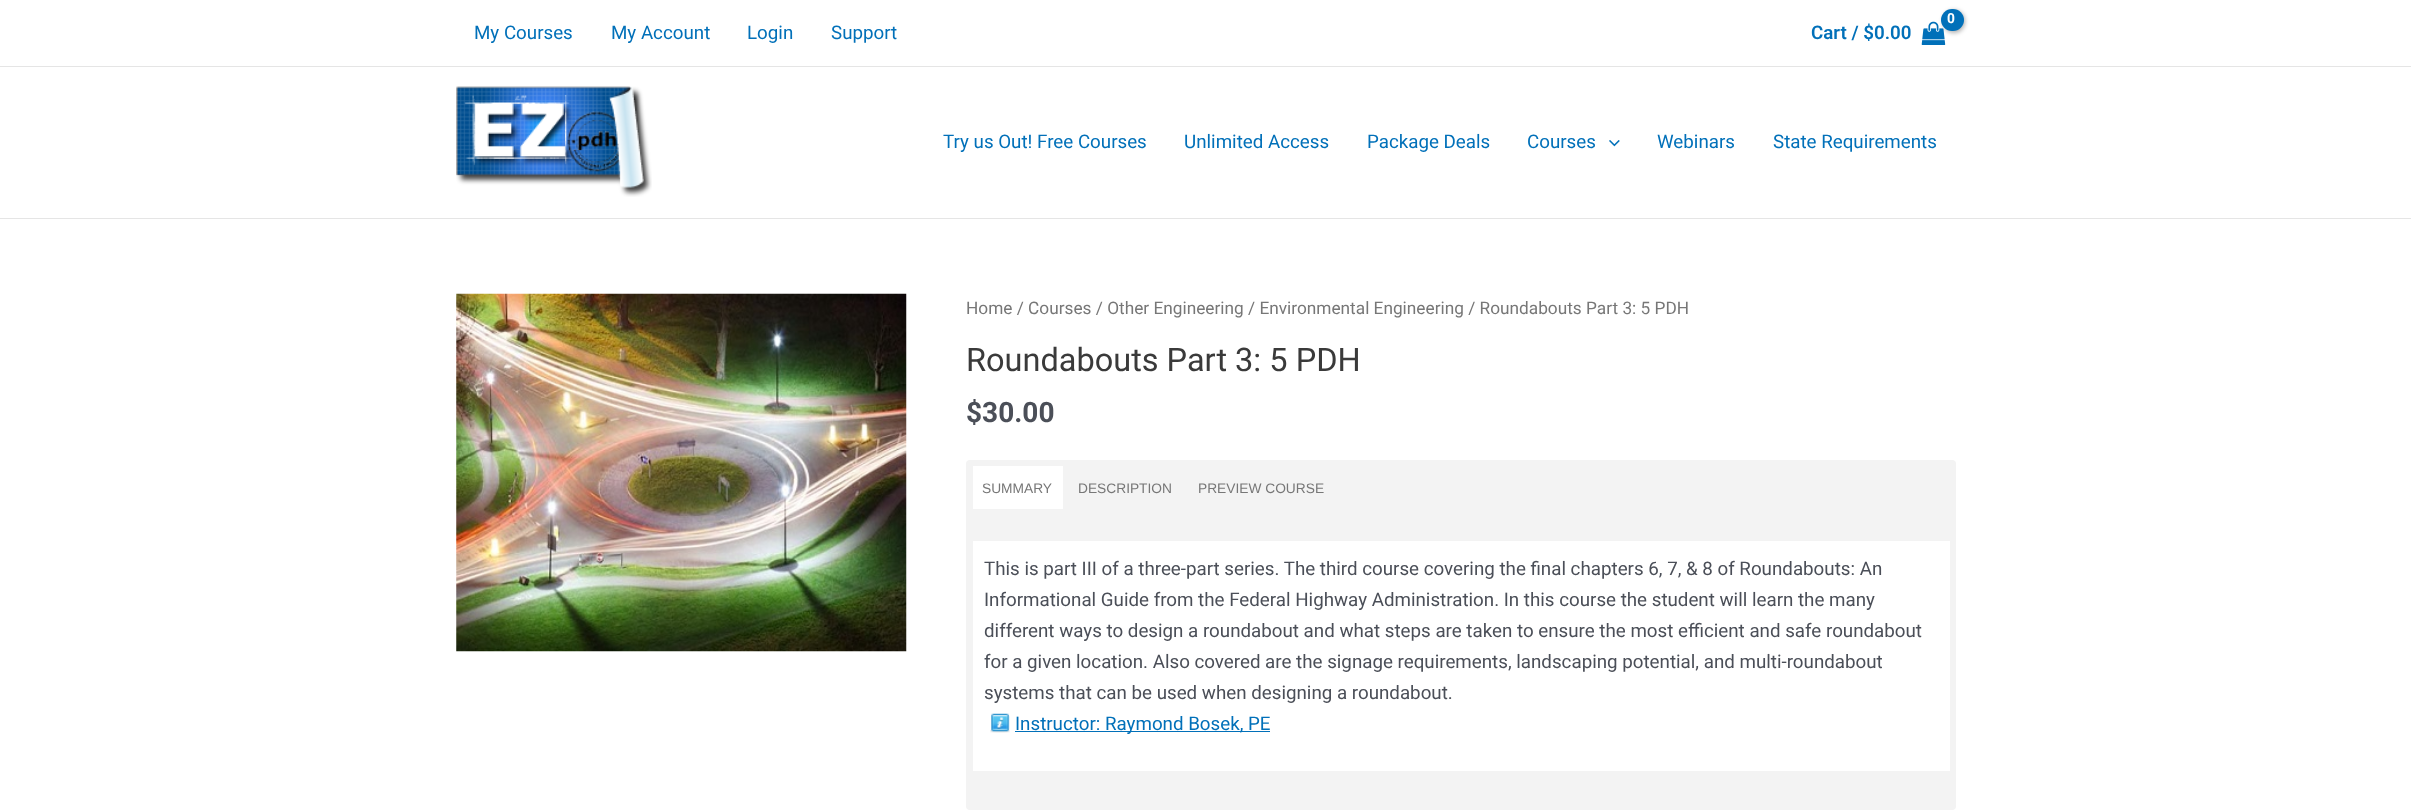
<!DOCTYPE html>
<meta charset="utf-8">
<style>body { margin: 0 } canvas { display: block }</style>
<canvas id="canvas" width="2411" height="810"></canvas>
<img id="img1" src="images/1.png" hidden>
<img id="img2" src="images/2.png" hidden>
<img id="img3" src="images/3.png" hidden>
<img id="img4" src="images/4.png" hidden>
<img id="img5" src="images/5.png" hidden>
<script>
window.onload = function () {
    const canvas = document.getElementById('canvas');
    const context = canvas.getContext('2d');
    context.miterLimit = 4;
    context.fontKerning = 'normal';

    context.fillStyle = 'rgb(255, 255, 255)';
    context.fillRect(0, 0, 2411, 810);
    context.fillStyle = 'rgb(229, 229, 229)';
    context.fillRect(0, 66, 2411, 1);
    context.drawImage(document.getElementById('img1'), 1921, 21, 25, 24);
    context.fillStyle = 'rgba(0, 0, 0, 0.3)';
    context.filter = 'blur(2px)';
    context.beginPath();
    context.roundRect(1943, 10, 22, 23, 11);
    context.fill();
    context.filter = 'none';
    context.fillStyle = 'rgb(1, 112, 185)';
    context.beginPath();
    context.roundRect(1941, 9, 23, 22, 11);
    context.fill();
    context.fillStyle = 'rgb(229, 229, 229)';
    context.fillRect(0, 218, 2411, 1);
    context.drawImage(document.getElementById('img2'), 456, 86, 196, 111);
    context.drawImage(document.getElementById('img3'), 1609, 140, 11, 7);
    context.drawImage(document.getElementById('img4'), 456, 293, 451, 359);
    context.fillStyle = 'rgb(243, 243, 243)';
    context.beginPath();
    context.roundRect(966, 460, 990, 350, 4);
    context.fill();
    context.fillStyle = 'rgb(255, 255, 255)';
    context.fillRect(973, 466, 90, 43);
    context.fillRect(973, 541, 977, 230);
    context.drawImage(document.getElementById('img5'), 990, 713, 20, 20);
    context.fillStyle = 'rgb(1, 112, 185)';
    context.fillRect(1015, 731, 255, 1);
    context.font = '18.75px Roboto';
    context.fillText('My Courses', 474, 39);
    context.fillText('My Account', 611, 39);
    context.fillText('Login', 747, 39);
    context.fillText('Support', 831, 39);
    context.letterSpacing = '-1px';
    context.font = 'bold 13.75px Roboto';
    context.fillStyle = 'rgb(255, 255, 255)';
    context.fillText('0', 1947, 23);
    context.letterSpacing = '0px';
    context.font = '600 18.75px Roboto';
    context.fillStyle = 'rgb(1, 112, 185)';
    context.fillText('Cart / $0.00', 1811, 39);
    context.font = '18.75px Roboto';
    context.fillText('Try us Out! Free Courses', 943, 148);
    context.fillText('Unlimited Access', 1184, 148);
    context.fillText('Package Deals', 1367, 148);
    context.fillText('Courses', 1527, 148);
    context.fillText('Webinars', 1657, 148);
    context.fillText('State Requirements', 1773, 148);
    context.font = '17.25px Roboto';
    context.fillStyle = 'rgb(119, 119, 119)';
    context.fillText('Home / Courses / Other Engineering / Environmental Engineering / Roundabouts Part 3: 5 PDH', 966, 314);
    context.font = '32.5px Roboto';
    context.fillStyle = 'rgb(58, 58, 58)';
    context.fillText('Roundabouts Part 3: 5 PDH', 966, 371);
    context.font = 'bold 28px Roboto';
    context.fillStyle = 'rgb(75, 79, 88)';
    context.fillText('$30.00', 966, 422);
    context.font = '13.75px Liberation Sans';
    context.fillStyle = 'rgb(119, 119, 119)';
    context.fillText('SUMMARY', 982, 493);
    context.fillText('DESCRIPTION', 1078, 493);
    context.fillText('PREVIEW COURSE', 1198, 493);
    context.font = '18.75px Roboto';
    context.fillStyle = 'rgb(75, 79, 88)';
    context.fillText('This is part III of a three-part series. The third course covering the final chapters 6, 7, & 8 of Roundabouts: An', 984, 575);
    context.fillText('Informational Guide from the Federal Highway Administration. In this course the student will learn the many', 984, 606);
    context.fillText('different ways to design a roundabout and what steps are taken to ensure the most efficient and safe roundabout', 984, 637);
    context.fillText('for a given location. Also covered are the signage requirements, landscaping potential, and multi-roundabout', 984, 668);
    context.fillText('systems that can be used when designing a roundabout.', 984, 699);
    context.fillStyle = 'rgb(1, 112, 185)';
    context.fillText('Instructor: Raymond Bosek, PE', 1015, 730);
};
</script>
